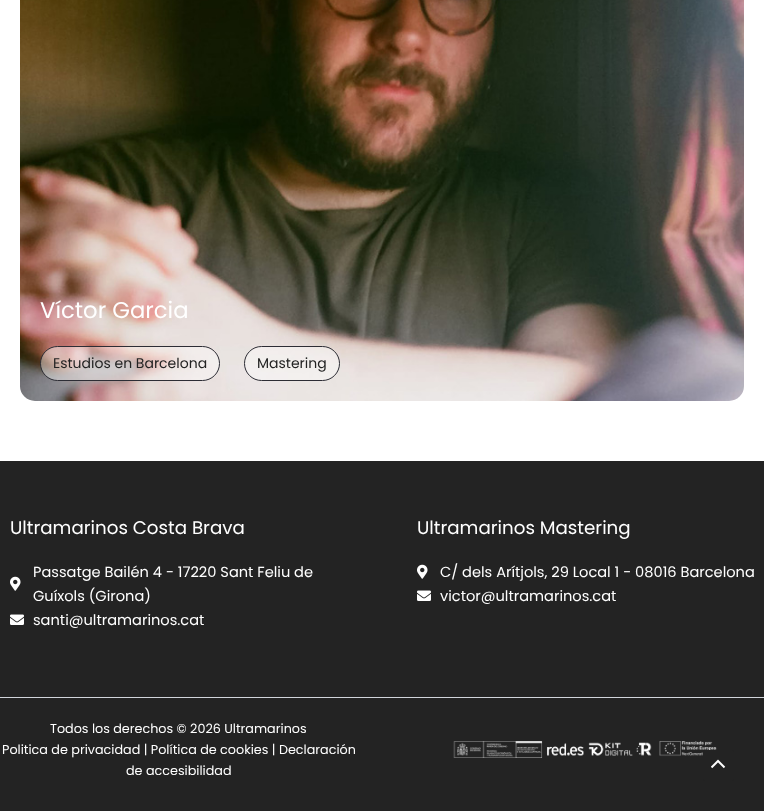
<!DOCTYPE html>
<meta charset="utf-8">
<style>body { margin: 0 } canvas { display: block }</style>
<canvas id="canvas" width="764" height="811"></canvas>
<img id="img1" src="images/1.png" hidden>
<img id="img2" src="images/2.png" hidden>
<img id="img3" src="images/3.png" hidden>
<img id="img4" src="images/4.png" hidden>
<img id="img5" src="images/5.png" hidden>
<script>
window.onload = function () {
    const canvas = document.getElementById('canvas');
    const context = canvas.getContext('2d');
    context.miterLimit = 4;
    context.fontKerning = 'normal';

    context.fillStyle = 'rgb(255, 255, 255)';
    context.fillRect(0, 0, 764, 811);
    context.drawImage(document.getElementById('img1'), 20, 0, 724, 401);
    context.fillStyle = 'rgba(255, 255, 255, 0.42)';
    context.beginPath();
    context.roundRect(40.5, 346.5, 179, 34, 17);
    context.fill();
    context.strokeStyle = 'rgb(45, 45, 53)';
    context.stroke();
    context.beginPath();
    context.roundRect(244.5, 346.5, 95, 34, 17);
    context.fill();
    context.stroke();
    context.fillStyle = 'rgb(35, 35, 35)';
    context.fillRect(0, 461, 764, 236);
    context.drawImage(document.getElementById('img2'), 10, 576, 11, 15);
    context.drawImage(document.getElementById('img3'), 10, 614, 14, 11);
    context.drawImage(document.getElementById('img2'), 417, 564, 11, 15);
    context.drawImage(document.getElementById('img3'), 417, 590, 14, 11);
    context.fillRect(0, 698, 764, 113);
    context.fillStyle = 'rgb(209, 213, 219)';
    context.fillRect(0, 697, 764, 1);
    context.drawImage(document.getElementById('img4'), 453, 741, 264, 17);
    context.fillStyle = 'rgb(35, 35, 35)';
    context.beginPath();
    context.roundRect(703, 750, 31, 31, 2);
    context.fill();
    context.drawImage(document.getElementById('img5'), 711, 759, 15, 10);
    context.font = '22.75px Poppins';
    context.fillStyle = 'rgb(255, 255, 255)';
    context.fillText('Víctor Garcia', 40, 318);
    context.font = '14px Poppins';
    context.fillStyle = 'rgb(35, 35, 35)';
    context.fillText('Estudios en Barcelona', 53, 368);
    context.fillText('Mastering', 257, 368);
    context.font = '18.25px Poppins';
    context.fillStyle = 'rgb(255, 255, 255)';
    context.fillText('Ultramarinos Costa Brava', 10, 534);
    context.font = '14.6px Poppins';
    context.fillText('Passatge Bailén 4 - 17220 Sant Feliu de', 33, 577);
    context.fillText('Guíxols (Girona)', 33, 601);
    context.fillText('santi@ultramarinos.cat', 33, 625);
    context.font = '18.25px Poppins';
    context.fillText('Ultramarinos Mastering', 417, 534);
    context.font = '14.6px Poppins';
    context.fillText('C/ dels Arítjols, 29 Local 1 - 08016 Barcelona', 440, 577);
    context.fillText('victor@ultramarinos.cat', 440, 601);
    context.font = '12.75px Poppins';
    context.fillText('Todos los derechos © 2026 Ultramarinos', 50, 733);
    context.fillText('Politica de privacidad | Política de cookies | Declaración', 2, 754);
    context.fillText('de accesibilidad', 126, 775);
};
</script>
